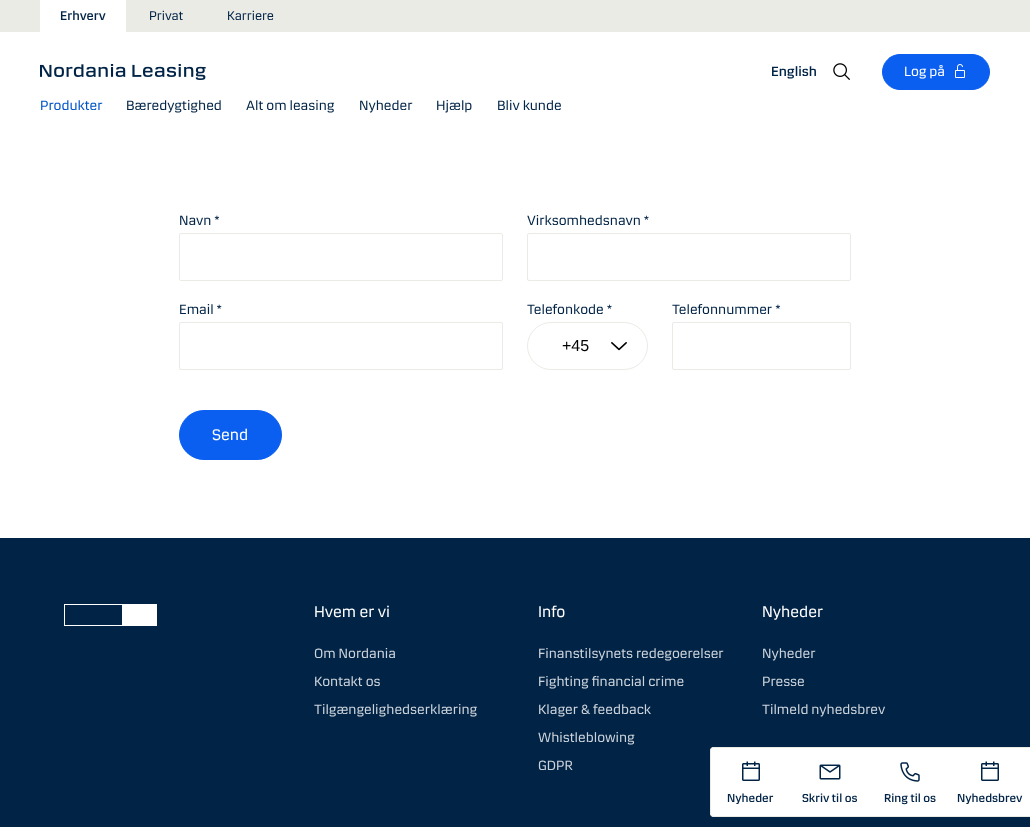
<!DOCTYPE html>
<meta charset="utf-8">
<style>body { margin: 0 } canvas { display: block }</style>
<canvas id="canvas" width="1030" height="827"></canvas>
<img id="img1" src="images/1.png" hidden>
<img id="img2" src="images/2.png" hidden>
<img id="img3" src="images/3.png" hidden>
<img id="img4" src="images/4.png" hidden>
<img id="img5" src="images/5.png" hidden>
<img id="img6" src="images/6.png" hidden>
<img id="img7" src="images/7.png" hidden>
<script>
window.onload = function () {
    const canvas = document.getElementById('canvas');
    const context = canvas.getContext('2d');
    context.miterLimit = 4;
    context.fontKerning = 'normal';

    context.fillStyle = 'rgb(255, 255, 255)';
    context.fillRect(0, 0, 1030, 827);
    context.fillStyle = 'rgb(235, 235, 230)';
    context.fillRect(0, 0, 1030, 32);
    context.fillStyle = 'rgb(255, 255, 255)';
    context.fillRect(40, 0, 86, 32);
    context.drawImage(document.getElementById('img1'), 833, 63, 17, 17);
    context.fillStyle = 'rgb(10, 94, 240)';
    context.beginPath();
    context.roundRect(882.5, 54.5, 107, 35, 17.5);
    context.fill();
    context.strokeStyle = 'rgb(10, 94, 240)';
    context.stroke();
    context.drawImage(document.getElementById('img2'), 955, 64, 10, 14);
    context.drawImage(document.getElementById('img3'), 40, 64, 166, 16);
    context.beginPath();
    context.roundRect(179.5, 233.5, 323, 47, 1.5);
    context.strokeStyle = 'rgb(235, 235, 230)';
    context.stroke();
    context.beginPath();
    context.roundRect(527.5, 233.5, 323, 47, 1.5);
    context.stroke();
    context.beginPath();
    context.roundRect(179.5, 322.5, 323, 47, 1.5);
    context.stroke();
    context.drawImage(document.getElementById('img4'), 611, 342, 16, 9);
    context.beginPath();
    context.roundRect(527.5, 322.5, 120, 47, 23.5);
    context.stroke();
    context.beginPath();
    context.roundRect(672.5, 322.5, 178, 47, 1.5);
    context.stroke();
    context.beginPath();
    context.roundRect(179.5, 410.5, 102, 49, 24.5);
    context.fill();
    context.strokeStyle = 'rgb(10, 94, 240)';
    context.stroke();
    context.fillStyle = 'rgb(0, 35, 70)';
    context.fillRect(0, 538, 1030, 289);
    context.fillStyle = 'rgb(255, 255, 255)';
    context.fillRect(64, 604, 93, 22);
    context.fillStyle = 'rgb(0, 35, 70)';
    context.fillRect(65, 605, 57, 20);
    context.fillStyle = 'rgb(255, 255, 255)';
    context.beginPath();
    context.roundRect(710, 747, 80, 70, [4, 0, 0, 4]);
    context.fill();
    context.fillStyle = 'rgb(235, 235, 230)';
    context.beginPath();
    context.moveTo(714, 747);
    context.lineTo(790, 747);
    context.lineTo(790, 817);
    context.lineTo(714, 817);
    context.bezierCurveTo(712, 817, 710, 815, 710, 813);
    context.lineTo(710, 751);
    context.bezierCurveTo(710, 749, 712, 747, 714, 747);
    context.closePath();
    context.moveTo(714, 748);
    context.lineTo(790, 748);
    context.lineTo(790, 816);
    context.lineTo(714, 816);
    context.bezierCurveTo(712, 816, 711, 815, 711, 813);
    context.lineTo(711, 751);
    context.bezierCurveTo(711, 749, 712, 748, 714, 748);
    context.closePath();
    context.fill('evenodd');
    context.drawImage(document.getElementById('img5'), 742, 761, 18, 20);
    context.fillStyle = 'rgb(255, 255, 255)';
    context.fillRect(790, 748, 240, 68);
    context.fillStyle = 'rgb(235, 235, 230)';
    context.fillRect(790, 747, 240, 1);
    context.fillRect(790, 816, 240, 1);
    context.drawImage(document.getElementById('img6'), 819, 764, 22, 16);
    context.drawImage(document.getElementById('img7'), 900, 762, 20, 20);
    context.drawImage(document.getElementById('img5'), 981, 761, 18, 20);
    context.font = '500 13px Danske';
    context.fillStyle = 'rgb(0, 35, 70)';
    context.fillText('Erhverv', 60, 20);
    context.font = '13px Danske';
    context.fillText('Privat', 149, 20);
    context.fillText('Karriere', 227, 20);
    context.font = '500 14px Danske';
    context.fillText('English', 771, 76);
    context.font = '14px Danske';
    context.fillStyle = 'rgb(255, 255, 255)';
    context.fillText('Log på', 904, 76);
    context.fillStyle = 'rgb(0, 85, 201)';
    context.fillText('Produkter', 40, 110);
    context.fillStyle = 'rgb(0, 35, 70)';
    context.fillText('Bæredygtighed', 126, 110);
    context.fillText('Alt om leasing', 246, 110);
    context.fillText('Nyheder', 359, 110);
    context.fillText('Hjælp', 436, 110);
    context.fillText('Bliv kunde', 497, 110);
    context.fillText('Navn *', 179, 225);
    context.fillText('Virksomhedsnavn *', 527, 225);
    context.fillText('Email *', 179, 314);
    context.fillText('Telefonkode *', 527, 314);
    context.font = '16px Liberation Sans';
    context.fillStyle = 'rgb(0, 0, 0)';
    context.fillText('+45', 562, 351);
    context.font = '14px Danske';
    context.fillStyle = 'rgb(0, 35, 70)';
    context.fillText('Telefonnummer *', 672, 314);
    context.font = '16px Danske';
    context.fillStyle = 'rgb(255, 255, 255)';
    context.fillText('Send', 212, 440);
    context.fillText('Hvem er vi', 314, 617);
    context.font = '14px Danske';
    context.fillStyle = 'rgb(204, 211, 218)';
    context.fillText('Om Nordania', 314, 658);
    context.fillText('Kontakt os', 314, 686);
    context.fillText('Tilgængelighedserklæring', 314, 714);
    context.font = '16px Danske';
    context.fillStyle = 'rgb(255, 255, 255)';
    context.fillText('Info', 538, 617);
    context.font = '14px Danske';
    context.fillStyle = 'rgb(204, 211, 218)';
    context.fillText('Finanstilsynets redegoerelser', 538, 658);
    context.fillText('Fighting financial crime', 538, 686);
    context.fillText('Klager & feedback', 538, 714);
    context.fillText('Whistleblowing', 538, 742);
    context.fillText('GDPR', 538, 770);
    context.font = '16px Danske';
    context.fillStyle = 'rgb(255, 255, 255)';
    context.fillText('Nyheder', 762, 617);
    context.font = '14px Danske';
    context.fillStyle = 'rgb(204, 211, 218)';
    context.fillText('Nyheder', 762, 658);
    context.fillText('Presse', 762, 686);
    context.fillText('Tilmeld nyhedsbrev', 762, 714);
    context.font = '500 12px Danske';
    context.fillStyle = 'rgb(0, 35, 70)';
    context.fillText('Nyheder', 727, 802);
    context.fillText('Skriv til os', 802, 802);
    context.fillText('Ring til os', 884, 802);
    context.fillText('Nyhedsbrev', 957, 802);
};
</script>
